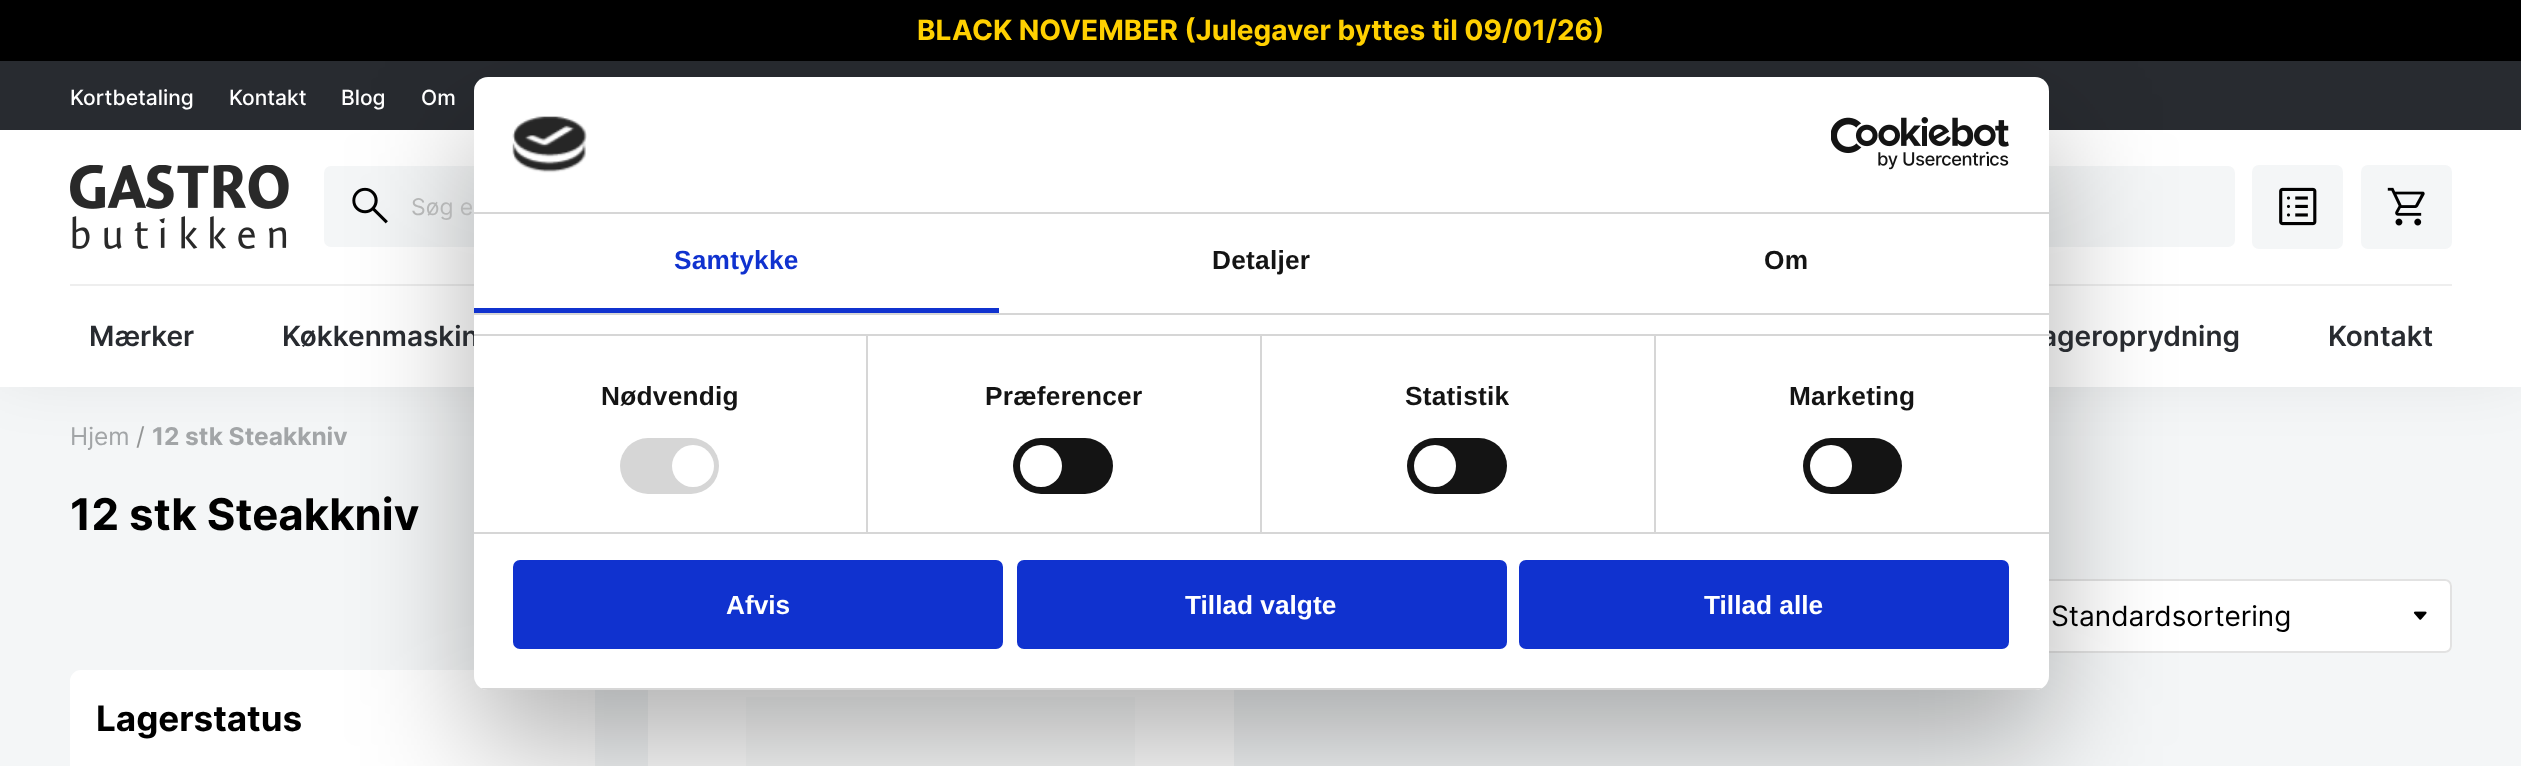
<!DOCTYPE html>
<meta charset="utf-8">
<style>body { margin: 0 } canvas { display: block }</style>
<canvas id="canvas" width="2521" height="766"></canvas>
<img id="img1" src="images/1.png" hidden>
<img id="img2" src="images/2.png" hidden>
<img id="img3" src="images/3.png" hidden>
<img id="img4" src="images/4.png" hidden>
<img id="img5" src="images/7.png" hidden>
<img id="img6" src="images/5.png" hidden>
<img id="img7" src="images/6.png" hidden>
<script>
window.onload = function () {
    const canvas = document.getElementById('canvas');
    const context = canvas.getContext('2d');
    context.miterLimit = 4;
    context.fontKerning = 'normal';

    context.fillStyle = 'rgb(244, 246, 247)';
    context.fillRect(0, 0, 2521, 766);
    context.fillStyle = 'rgb(0, 0, 0)';
    context.fillRect(0, 0, 2521, 61);
    context.fillStyle = 'rgba(0, 0, 0, 0.1)';
    context.filter = 'blur(35px)';
    context.beginPath();
    context.rect(0, 44, 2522, 325);
    context.fill();
    context.filter = 'none';
    context.fillStyle = 'rgb(40, 43, 48)';
    context.fillRect(0, 61, 2521, 69);
    context.fillStyle = 'rgb(255, 255, 255)';
    context.fillRect(0, 130, 2521, 257);
    context.drawImage(document.getElementById('img1'), 70, 165, 219, 84);
    context.fillStyle = 'rgb(244, 246, 247)';
    context.beginPath();
    context.roundRect(324, 166, 1911, 81, 7);
    context.fill();
    context.drawImage(document.getElementById('img2'), 352, 187, 36, 37);
    context.beginPath();
    context.roundRect(2252, 165, 91, 84, 7);
    context.fill();
    context.drawImage(document.getElementById('img3'), 2279, 187, 38, 39);
    context.beginPath();
    context.roundRect(2361, 165, 91, 84, 7);
    context.fill();
    context.drawImage(document.getElementById('img4'), 2387, 187, 38, 39);
    context.fillStyle = 'rgb(238, 238, 238)';
    context.fillRect(70, 284, 2382, 2);
    context.fillStyle = 'rgb(255, 255, 255)';
    context.beginPath();
    context.roundRect(2032, 579, 420, 74, 7);
    context.fill();
    context.drawImage(document.getElementById('img5'), 2413, 611, 14, 9);
    context.beginPath();
    context.roundRect(2033, 580, 418, 72, 6);
    context.strokeStyle = 'rgb(226, 226, 226)';
    context.lineWidth = 2;
    context.stroke();
    context.beginPath();
    context.roundRect(70, 670, 525, 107, 11);
    context.fill();
    context.fillRect(648, 690, 586, 76);
    context.fillStyle = 'rgb(250, 251, 251)';
    context.fillRect(746, 697, 389, 69);
    context.fillStyle = 'rgba(0, 0, 0, 0.3)';
    context.filter = 'blur(59.5px)';
    context.beginPath();
    context.roundRect(474, 133, 1575, 613, 14);
    context.fill();
    context.filter = 'none';
    context.font = 'bold 28px Inter';
    context.fillStyle = 'rgb(255, 208, 0)';
    context.fillText('BLACK NOVEMBER (Julegaver byttes til 09/01/26)', 917, 40);
    context.font = '500 21px Inter';
    context.fillStyle = 'rgb(255, 255, 255)';
    context.fillText('Kortbetaling', 70, 105);
    context.fillText('Kontakt', 229, 105);
    context.fillText('Blog', 341, 105);
    context.fillText('Om', 421, 105);
    context.font = '23px Inter';
    context.fillStyle = 'rgb(181, 182, 182)';
    context.fillText('Søg e', 411, 215);
    context.font = '600 28px Inter';
    context.fillStyle = 'rgb(40, 43, 48)';
    context.fillText('Mærker', 89, 346);
    context.fillText('Køkkenmaskin', 282, 346);
    context.fillText('ageroprydning', 2041, 346);
    context.fillText('Kontakt', 2328, 346);
    context.font = '24.5px Inter';
    context.fillStyle = 'rgb(162, 165, 167)';
    context.fillText('Hjem', 70, 445);
    context.fillStyle = 'rgb(146, 148, 148)';
    context.fillText('/', 136, 445);
    context.font = 'bold 24.5px Inter';
    context.fillStyle = 'rgb(162, 165, 167)';
    context.fillText('12 stk Steakkniv', 152, 445);
    context.fillStyle = 'rgb(255, 255, 255)';
    context.beginPath();
    context.roundRect(474, 77, 1575, 613, 14);
    context.fill();
    context.fillStyle = 'rgb(214, 214, 214)';
    context.fillRect(474, 212, 1575, 2);
    context.drawImage(document.getElementById('img6'), 512, 116, 75, 57);
    context.drawImage(document.getElementById('img7'), 1831, 117, 178, 53);
    context.fillRect(474, 313, 1575, 2);
    context.fillStyle = 'rgb(16, 50, 207)';
    context.fillRect(474, 308, 525, 5);
    context.letterSpacing = '0.25px';
    context.font = 'bold 26.25px Liberation Sans';
    context.fillText('Samtykke', 674, 269);
    context.fillStyle = 'rgb(20, 20, 20)';
    context.fillText('Detaljer', 1212, 269);
    context.fillText('Om', 1764, 269);
    context.fillStyle = 'rgb(214, 214, 214)';
    context.fillRect(474, 334, 1575, 2);
    context.fillRect(474, 532, 1575, 2);
    context.fillRect(866, 336, 2, 196);
    context.fillStyle = 'rgb(20, 20, 20)';
    context.fillText('Nødvendig', 601, 405);
    context.fillStyle = 'rgb(214, 214, 214)';
    context.beginPath();
    context.roundRect(620, 438, 99, 56, 28);
    context.fill();
    context.fillStyle = 'rgb(255, 255, 255)';
    context.beginPath();
    context.arc(693, 466, 21, 0, 2 * Math.PI);
    context.fill();
    context.fillStyle = 'rgb(214, 214, 214)';
    context.fillRect(1260, 336, 2, 196);
    context.fillStyle = 'rgb(20, 20, 20)';
    context.fillText('Præferencer', 985, 405);
    context.beginPath();
    context.roundRect(1013, 438, 100, 56, 28);
    context.fill();
    context.fillStyle = 'rgb(255, 255, 255)';
    context.beginPath();
    context.arc(1041, 466, 21, 0, 2 * Math.PI);
    context.fill();
    context.fillStyle = 'rgb(214, 214, 214)';
    context.fillRect(1654, 336, 2, 196);
    context.fillStyle = 'rgb(20, 20, 20)';
    context.fillText('Statistik', 1405, 405);
    context.beginPath();
    context.roundRect(1407, 438, 100, 56, 28);
    context.fill();
    context.fillStyle = 'rgb(255, 255, 255)';
    context.beginPath();
    context.arc(1435, 466, 21, 0, 2 * Math.PI);
    context.fill();
    context.fillStyle = 'rgb(20, 20, 20)';
    context.fillText('Marketing', 1789, 405);
    context.beginPath();
    context.roundRect(1803, 438, 99, 56, 28);
    context.fill();
    context.fillStyle = 'rgb(255, 255, 255)';
    context.beginPath();
    context.arc(1831, 466, 21, 0, 2 * Math.PI);
    context.fill();
    context.save();
    context.beginPath();
    context.roundRect(474, 77, 1575, 613, 14);
    context.clip();
    context.fillStyle = 'rgb(214, 214, 214)';
    context.fillRect(474, 688, 1575, 2);
    context.restore();
    context.fillStyle = 'rgb(16, 50, 207)';
    context.beginPath();
    context.roundRect(515, 562, 486, 85, 5);
    context.fill();
    context.strokeStyle = 'rgb(16, 50, 207)';
    context.lineWidth = 4;
    context.stroke();
    context.letterSpacing = '0px';
    context.fillStyle = 'rgb(255, 255, 255)';
    context.fillText('Afvis', 726, 614);
    context.fillStyle = 'rgb(16, 50, 207)';
    context.beginPath();
    context.roundRect(1019, 562, 486, 85, 5);
    context.fill();
    context.stroke();
    context.fillStyle = 'rgb(255, 255, 255)';
    context.fillText('Tillad valgte', 1185, 614);
    context.fillStyle = 'rgb(16, 50, 207)';
    context.beginPath();
    context.roundRect(1521, 562, 486, 85, 5);
    context.fill();
    context.stroke();
    context.fillStyle = 'rgb(255, 255, 255)';
    context.fillText('Tillad alle', 1704, 614);
    context.font = 'bold 43.75px Inter';
    context.fillStyle = 'rgb(0, 0, 0)';
    context.fillText('12 stk Steakkniv', 70, 530);
    context.font = '28px Inter';
    context.fillText('Standardsortering', 2051, 626);
    context.font = 'bold 35px Inter';
    context.fillText('Lagerstatus', 96, 731);
};
</script>
